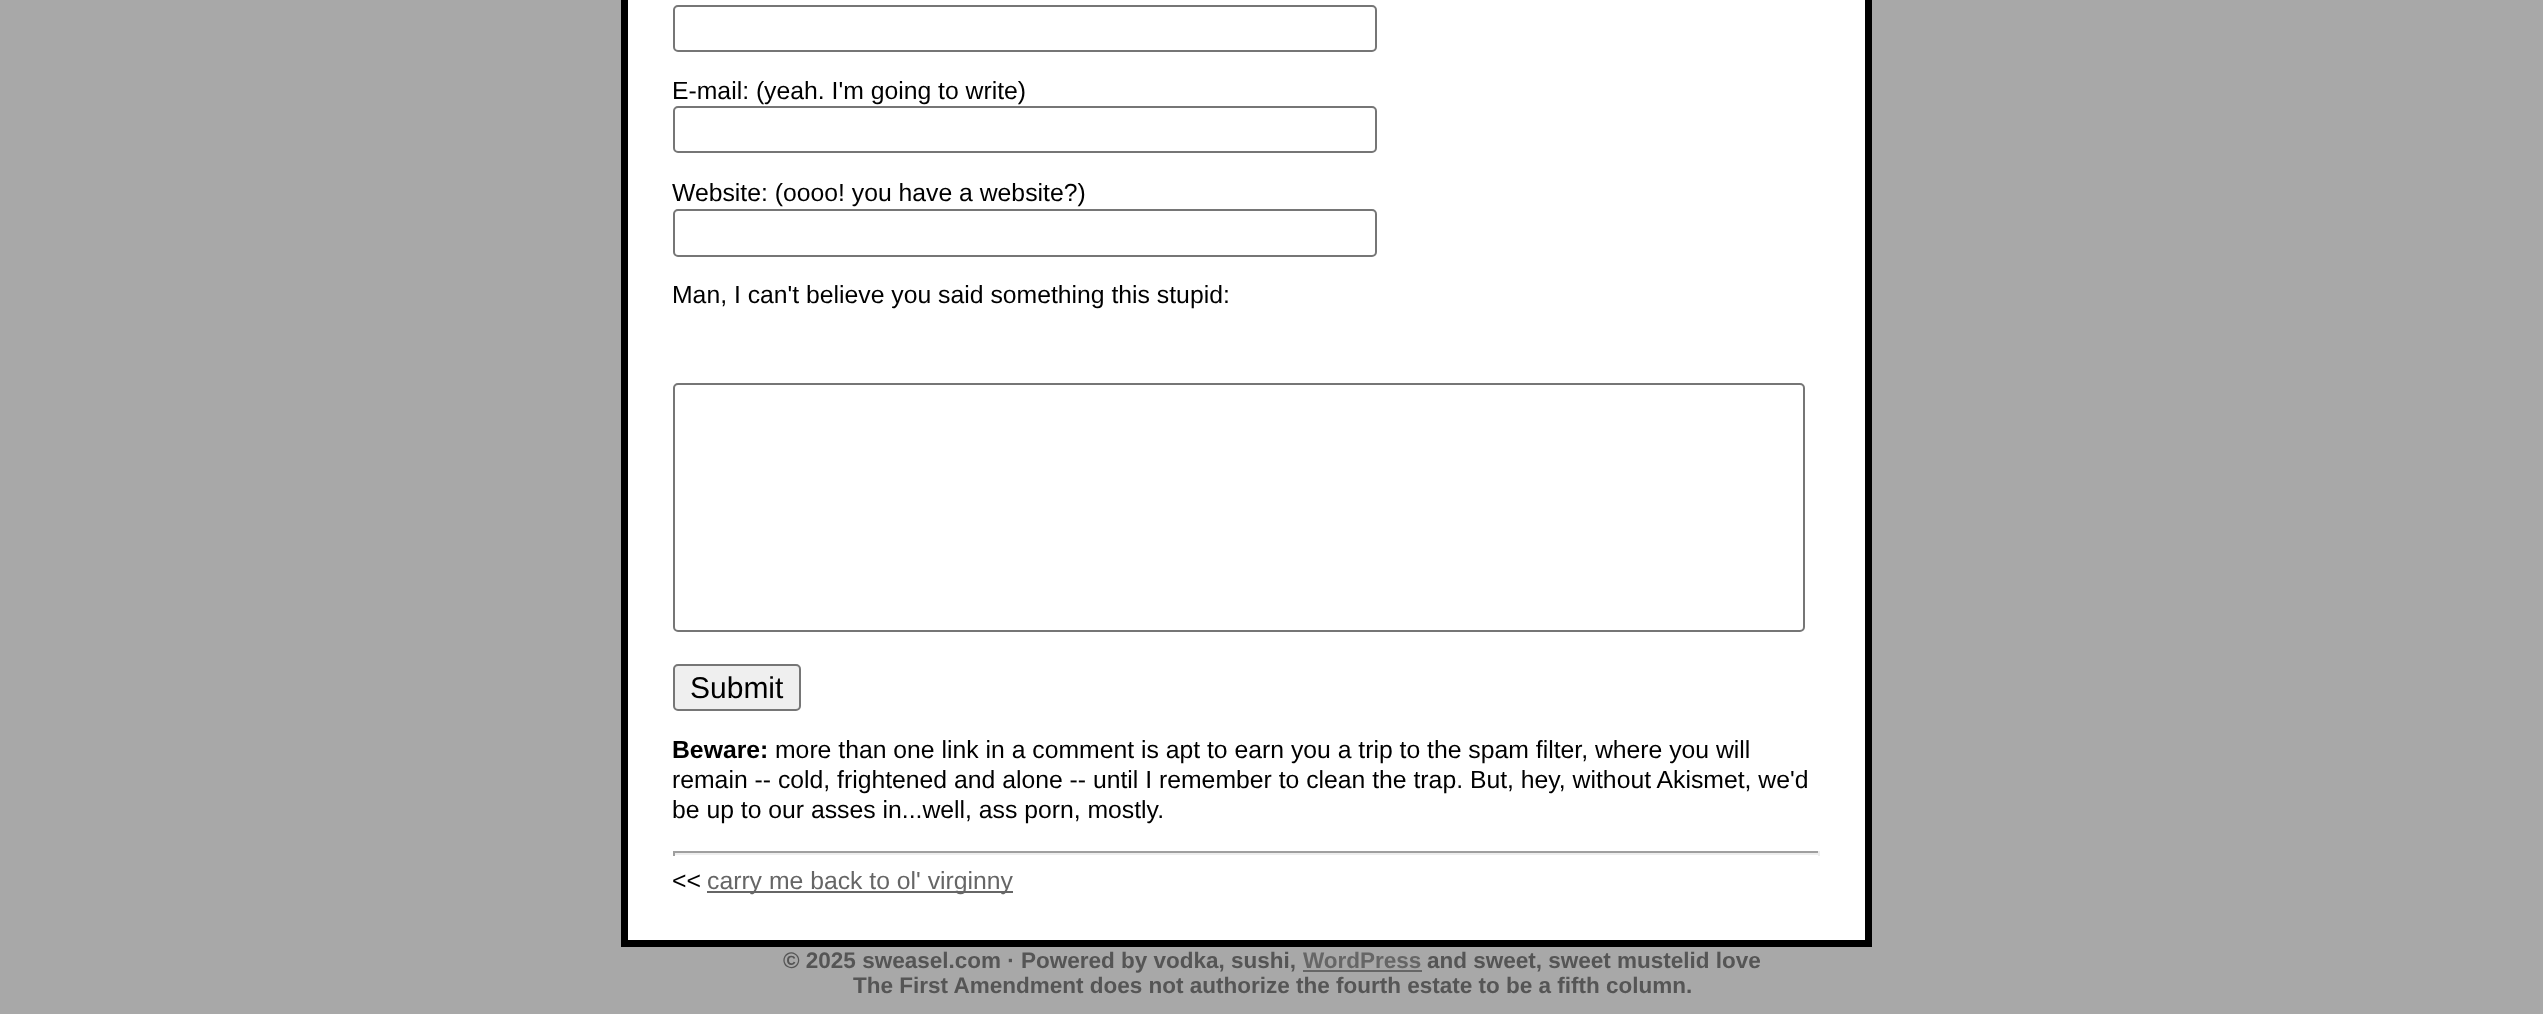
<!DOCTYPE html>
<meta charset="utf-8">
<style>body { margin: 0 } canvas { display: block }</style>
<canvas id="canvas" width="2543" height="1014"></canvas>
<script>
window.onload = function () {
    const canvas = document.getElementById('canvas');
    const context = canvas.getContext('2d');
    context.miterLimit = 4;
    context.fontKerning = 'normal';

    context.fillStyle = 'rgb(168, 168, 168)';
    context.fillRect(0, 0, 2543, 1014);
    context.fillStyle = 'rgb(255, 255, 255)';
    context.beginPath();
    context.rect(624.5, -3.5, 1244, 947);
    context.fill();
    context.strokeStyle = 'rgb(0, 0, 0)';
    context.lineWidth = 7;
    context.stroke();
    context.beginPath();
    context.roundRect(674, 6, 702, 45, 4);
    context.strokeStyle = 'rgb(118, 118, 118)';
    context.lineWidth = 2;
    context.stroke();
    context.beginPath();
    context.roundRect(674, 107, 702, 45, 4);
    context.stroke();
    context.beginPath();
    context.roundRect(674, 210, 702, 46, 4);
    context.stroke();
    context.beginPath();
    context.roundRect(674, 384, 1130, 247, 4);
    context.stroke();
    context.fillStyle = 'rgb(239, 239, 239)';
    context.beginPath();
    context.roundRect(674, 665, 126, 45, 4);
    context.fill();
    context.stroke();
    context.fillStyle = 'rgb(159, 159, 159)';
    context.fillRect(673, 851, 1147, 2);
    context.fillStyle = 'rgb(238, 238, 238)';
    context.fillRect(1818, 851, 2, 5);
    context.fillRect(673, 853, 1147, 2);
    context.fillStyle = 'rgb(159, 159, 159)';
    context.fillRect(673, 851, 2, 5);
    context.fillStyle = 'rgb(102, 102, 102)';
    context.fillRect(707, 891, 306, 2);
    context.fillRect(1303, 970, 119, 2);
    context.font = '24.75px Liberation Sans';
    context.fillStyle = 'rgb(0, 0, 0)';
    context.fillText('E-mail: (yeah. I\'m going to write)', 672, 99);
    context.fillText('Website: (oooo! you have a website?)', 672, 201);
    context.fillText('Man, I can\'t believe you said something this stupid:', 672, 303);
    context.font = '30px Liberation Sans';
    context.fillText('Submit', 690, 698);
    context.font = 'bold 24.75px Liberation Sans';
    context.fillText('Beware:', 672, 758);
    context.font = '24.75px Liberation Sans';
    context.fillText('more than one link in a comment is apt to earn you a trip to the spam filter, where you will', 775, 758);
    context.fillText('remain -- cold, frightened and alone -- until I remember to clean the trap. But, hey, without Akismet, we\'d', 672, 788);
    context.fillText('be up to our asses in...well, ass porn, mostly.', 672, 818);
    context.fillText('<<', 672, 889);
    context.fillStyle = 'rgb(102, 102, 102)';
    context.fillText('carry me back to ol\' virginny', 707, 889);
    context.font = 'bold 22.5px Liberation Sans';
    context.fillStyle = 'rgb(85, 85, 85)';
    context.fillText('© 2025 sweasel.com · Powered by vodka, sushi,', 783, 968);
    context.fillStyle = 'rgb(102, 102, 102)';
    context.fillText('WordPress', 1303, 968);
    context.fillStyle = 'rgb(85, 85, 85)';
    context.fillText('and sweet, sweet mustelid love', 1427, 968);
    context.fillText('The First Amendment does not authorize the fourth estate to be a fifth column.', 853, 993);
};
</script>
